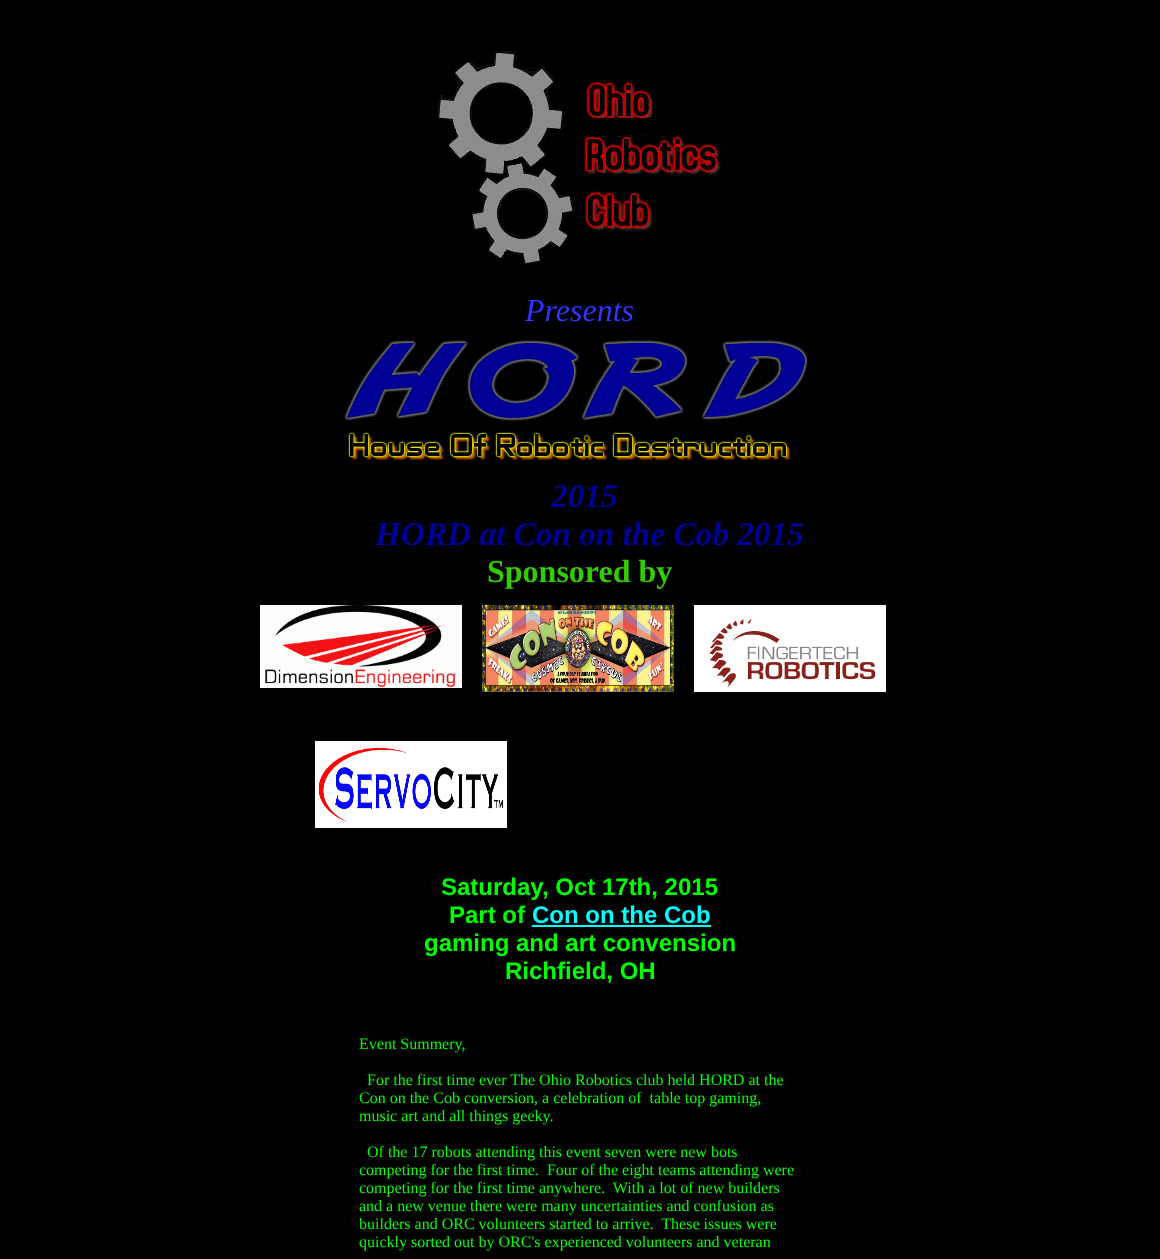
<!DOCTYPE html>
<meta charset="utf-8">
<style>body { margin: 0 } canvas { display: block }</style>
<canvas id="canvas" width="1160" height="1259"></canvas>
<img id="img1" src="images/1.png" hidden>
<img id="img2" src="images/2.png" hidden>
<img id="img3" src="images/3.png" hidden>
<img id="img4" src="images/4.png" hidden>
<img id="img5" src="images/5.png" hidden>
<img id="img6" src="images/6.png" hidden>
<script>
window.onload = function () {
    const canvas = document.getElementById('canvas');
    const context = canvas.getContext('2d');
    context.miterLimit = 4;
    context.fontKerning = 'normal';

    context.fillStyle = 'rgb(0, 0, 0)';
    context.fillRect(0, 0, 1160, 1259);
    context.drawImage(document.getElementById('img1'), 438, 51, 283, 214);
    context.drawImage(document.getElementById('img2'), 344, 340, 464, 121);
    context.drawImage(document.getElementById('img3'), 260, 605, 202, 83);
    context.drawImage(document.getElementById('img4'), 482, 605, 192, 87);
    context.drawImage(document.getElementById('img5'), 694, 605, 192, 87);
    context.drawImage(document.getElementById('img6'), 315, 741, 192, 87);
    context.fillStyle = 'rgb(0, 255, 255)';
    context.fillRect(532, 925, 179, 2);
    context.font = 'italic 32px Liberation Serif';
    context.fillStyle = 'rgb(51, 51, 255)';
    context.fillText('Presents', 525, 321);
    context.font = 'italic bold 33.25px Liberation Serif';
    context.fillStyle = 'rgb(0, 0, 153)';
    context.fillText('2015', 551, 507);
    context.fillText('HORD at Con on the Cob 2015', 375, 545);
    context.font = 'bold 32px Liberation Serif';
    context.fillStyle = 'rgb(51, 204, 0)';
    context.fillText('Sponsored by', 487, 582);
    context.font = 'bold 24px Liberation Sans';
    context.fillStyle = 'rgb(0, 255, 0)';
    context.fillText('Saturday, Oct 17th, 2015', 441, 895);
    context.fillText('Part of', 449, 923);
    context.fillStyle = 'rgb(0, 255, 255)';
    context.fillText('Con on the Cob', 532, 923);
    context.fillStyle = 'rgb(0, 255, 0)';
    context.fillText('gaming and art convension', 424, 951);
    context.fillText('Richfield, OH', 505, 979);
    context.font = '16px Liberation Serif';
    context.fillText('Event Summery,', 359, 1049);
    context.fillText('For the first time ever The Ohio Robotics club held HORD at the', 367, 1085);
    context.fillText('Con on the Cob conversion, a celebration of  table top gaming,', 359, 1103);
    context.fillText('music art and all things geeky.', 359, 1121);
    context.fillText('Of the 17 robots attending this event seven were new bots', 367, 1157);
    context.fillText('competing for the first time.  Four of the eight teams attending were', 359, 1175);
    context.fillText('competing for the first time anywhere.  With a lot of new builders', 359, 1193);
    context.fillText('and a new venue there were many uncertainties and confusion as', 359, 1211);
    context.fillText('builders and ORC volunteers started to arrive.  These issues were', 359, 1229);
    context.fillText('quickly sorted out by ORC\'s experienced volunteers and veteran', 359, 1247);
};
</script>
